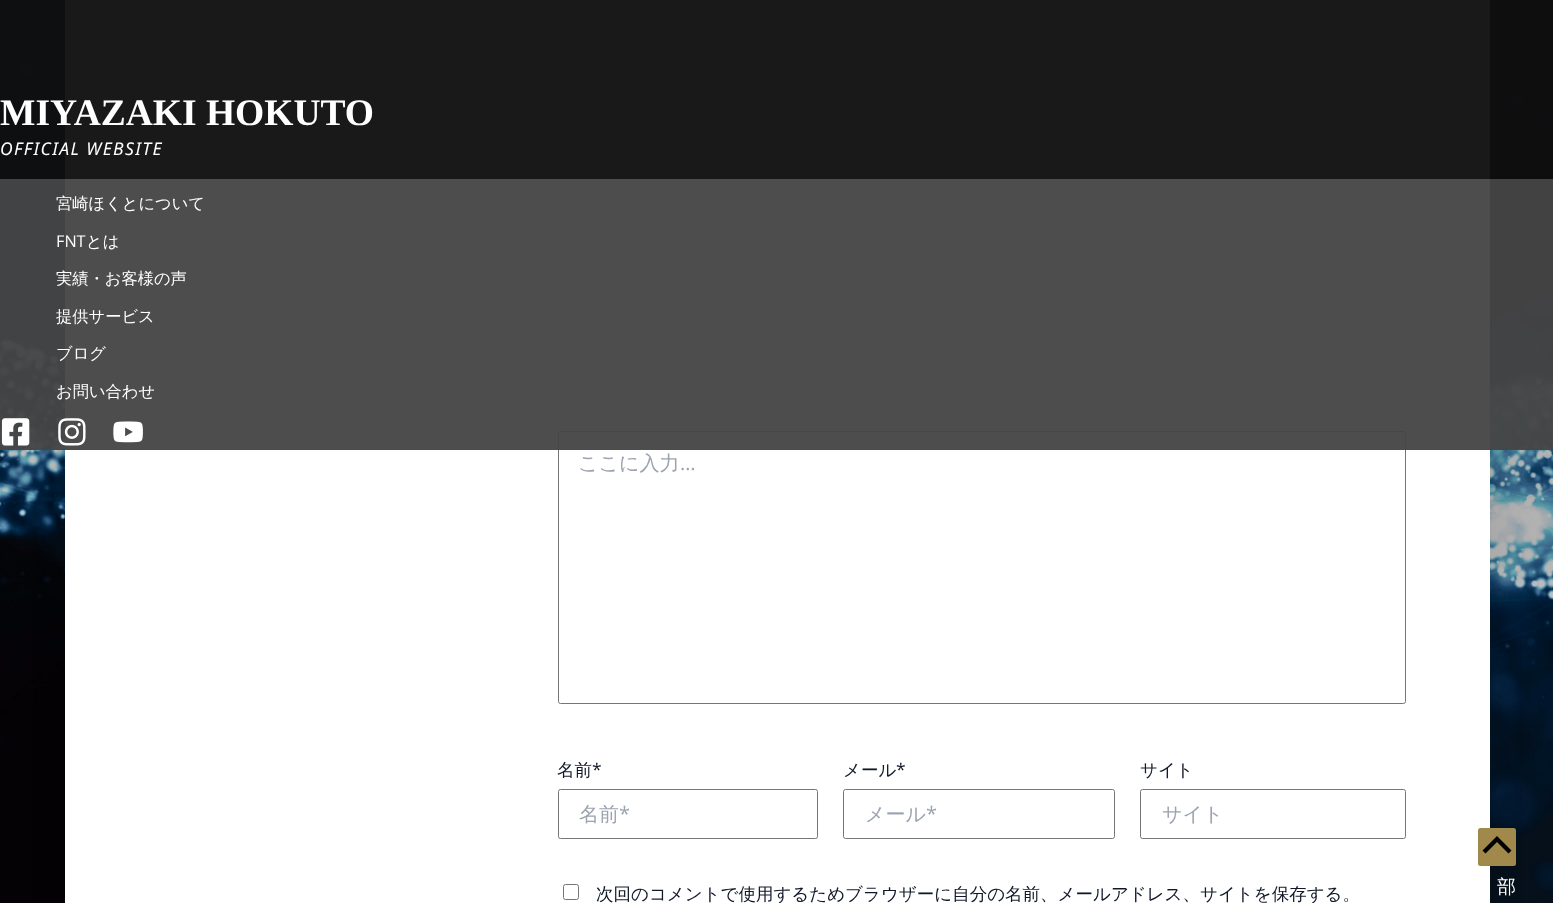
<!DOCTYPE html>
<meta charset="utf-8">
<style>body { margin: 0 } canvas { display: block }</style>
<canvas id="canvas" width="1553" height="903"></canvas>
<img id="img1" src="images/1.png" hidden>
<img id="img2" src="images/2.png" hidden>
<img id="img3" src="images/3.png" hidden>
<img id="img4" src="images/4.png" hidden>
<script>
window.onload = function () {
    const canvas = document.getElementById('canvas');
    const context = canvas.getContext('2d');
    context.miterLimit = 4;
    context.fontKerning = 'normal';

    context.fillStyle = 'rgb(255, 255, 255)';
    context.fillRect(0, 0, 1553, 903);
    context.drawImage(document.getElementById('img1'), 0, 0, 1553, 903);
    context.fillStyle = 'rgba(0, 0, 0, 0.08)';
    context.filter = 'blur(17.5px)';
    context.beginPath();
    context.roundRect(65, -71, 1425, 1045, 18);
    context.fill();
    context.filter = 'none';
    context.fillStyle = 'rgb(255, 255, 255)';
    context.fillRect(65, 0, 1425, 903);
    context.beginPath();
    context.roundRect(558.5, 431.5, 847, 272, 2);
    context.strokeStyle = 'rgb(118, 118, 118)';
    context.stroke();
    context.fillStyle = 'rgba(0, 0, 0, 0.8)';
    context.fillRect(0, 0, 1553, 450);
    context.fillStyle = 'rgba(18, 18, 18, 0.78)';
    context.fillRect(0, 0, 1553, 179);
    context.fillStyle = 'rgba(84, 84, 84, 0.78)';
    context.fillRect(0, 179, 1553, 271);
    context.drawImage(document.getElementById('img2'), 1, 418, 29, 28);
    context.drawImage(document.getElementById('img3'), 58, 418, 28, 28);
    context.drawImage(document.getElementById('img4'), 113, 421, 30, 22);
    context.beginPath();
    context.roundRect(558.5, 789.5, 259, 49, 2);
    context.stroke();
    context.beginPath();
    context.roundRect(843.5, 789.5, 271, 49, 2);
    context.stroke();
    context.beginPath();
    context.roundRect(1140.5, 789.5, 265, 49, 2);
    context.stroke();
    context.beginPath();
    context.roundRect(563.5, 884.5, 15, 15, 2);
    context.stroke();
    context.fillStyle = 'rgb(161, 137, 75)';
    context.beginPath();
    context.roundRect(1478, 828, 38, 38, 2.5);
    context.fill();
    context.fillStyle = 'rgb(0, 0, 0)';
    context.beginPath();
    context.moveTo(1511.5, 850.5);
    context.lineTo(1497, 836);
    context.lineTo(1482.5, 850.5);
    context.lineTo(1485.5, 853.5);
    context.lineTo(1497, 842);
    context.lineTo(1508.5, 853.5);
    context.closePath();
    context.fill();
    context.font = 'bold 37.5px Liberation Serif';
    context.fillStyle = 'rgb(255, 255, 255)';
    context.fillText('MIYAZAKI HOKUTO', 0, 125);
    context.letterSpacing = '1.4px';
    context.font = 'italic 17.5px Noto Sans';
    context.fillText('OFFICIAL WEBSITE', 0, 155);
    context.letterSpacing = '0px';
    context.font = '500 16.25px WenQuanYi Zen Hei';
    context.fillText('宮崎ほくとについて', 56, 209);
    context.font = '16.25px Open Sans';
    context.fillText('FNT', 56, 247);
    context.font = '500 16.25px WenQuanYi Zen Hei';
    context.fillText('とは', 86, 247);
    context.fillText('実績・お客様の声', 56, 284);
    context.fillText('提供サービス', 56, 322);
    context.fillText('ブログ', 56, 359);
    context.fillText('お問い合わせ', 56, 397);
    context.font = '500 20px WenQuanYi Zen Hei';
    context.fillStyle = 'rgb(156, 163, 175)';
    context.fillText('ここに入力', 578, 470);
    context.font = '20px Open Sans';
    context.fillText('…', 680, 470);
    context.font = '500 17.5px WenQuanYi Zen Hei';
    context.fillStyle = 'rgb(17, 24, 39)';
    context.fillText('名前', 557, 776);
    context.font = '17.5px Open Sans';
    context.fillText('*', 592, 776);
    context.font = '500 20px WenQuanYi Zen Hei';
    context.fillStyle = 'rgb(156, 163, 175)';
    context.fillText('名前', 579, 821);
    context.font = '20px Open Sans';
    context.fillText('*', 619, 821);
    context.font = '500 17.5px WenQuanYi Zen Hei';
    context.fillStyle = 'rgb(17, 24, 39)';
    context.fillText('メール', 843, 776);
    context.font = '17.5px Open Sans';
    context.fillText('*', 896, 776);
    context.font = '500 20px WenQuanYi Zen Hei';
    context.fillStyle = 'rgb(156, 163, 175)';
    context.fillText('メール', 865, 821);
    context.font = '20px Open Sans';
    context.fillText('*', 926, 821);
    context.font = '500 17.5px WenQuanYi Zen Hei';
    context.fillStyle = 'rgb(17, 24, 39)';
    context.fillText('サイト', 1140, 776);
    context.font = '500 20px WenQuanYi Zen Hei';
    context.fillStyle = 'rgb(156, 163, 175)';
    context.fillText('サイト', 1162, 821);
    context.font = '500 17.5px WenQuanYi Zen Hei';
    context.fillStyle = 'rgb(17, 24, 39)';
    context.fillText('次回のコメントで使用するためブラウザーに自分の名前、メールアドレス、サイトを保存する。', 596, 900);
    context.font = '500 19px WenQuanYi Zen Hei';
    context.fillStyle = 'rgb(255, 255, 255)';
    context.fillText('部', 1497, 893);
};
</script>
